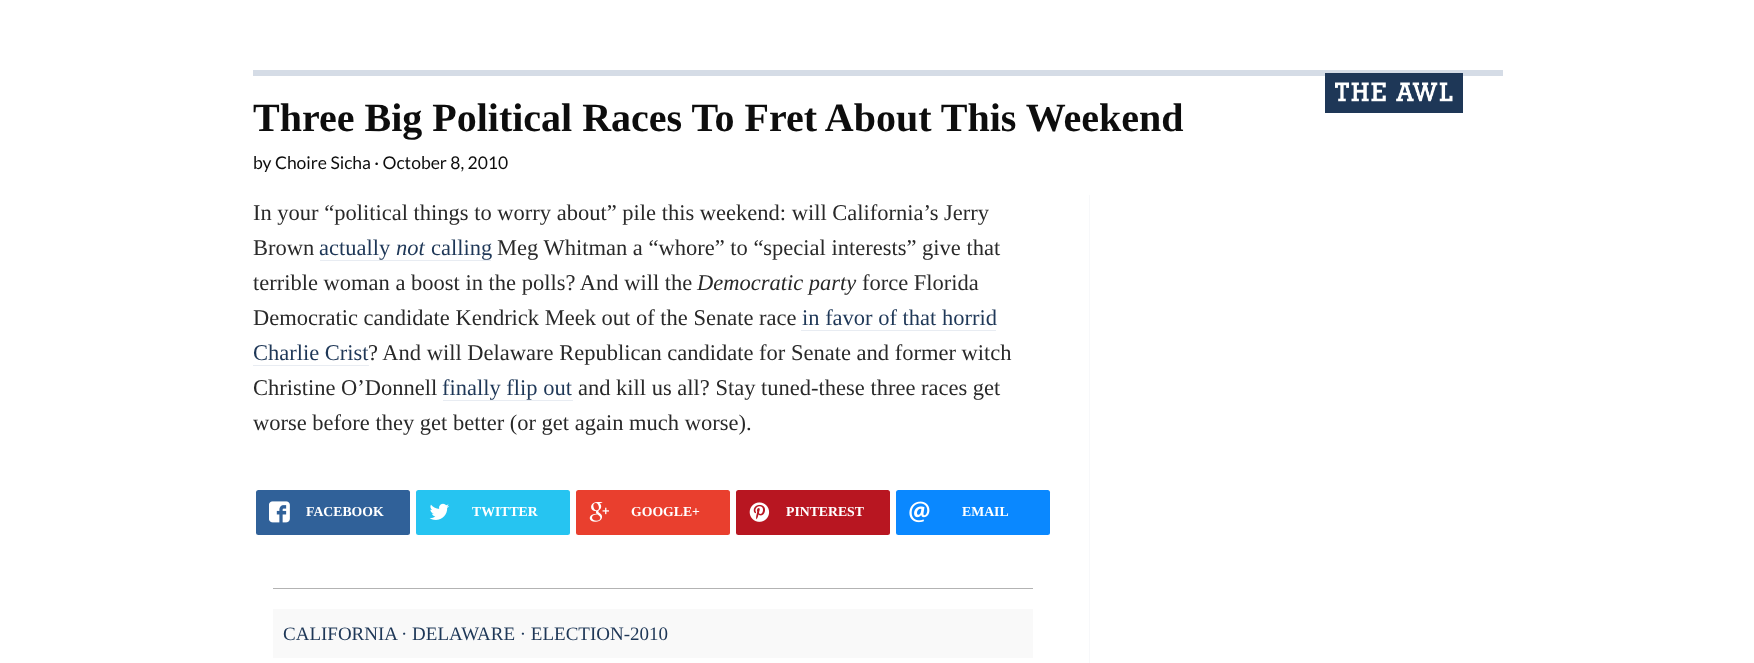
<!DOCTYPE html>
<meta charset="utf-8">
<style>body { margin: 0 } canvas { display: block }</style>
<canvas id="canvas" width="1754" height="663"></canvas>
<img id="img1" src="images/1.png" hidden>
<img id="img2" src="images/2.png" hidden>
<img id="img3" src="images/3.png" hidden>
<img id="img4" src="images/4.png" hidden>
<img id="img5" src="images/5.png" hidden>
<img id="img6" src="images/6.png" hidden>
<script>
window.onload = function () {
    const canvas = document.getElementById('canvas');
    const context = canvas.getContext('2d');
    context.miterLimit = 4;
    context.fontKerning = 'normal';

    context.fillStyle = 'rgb(255, 255, 255)';
    context.fillRect(0, 0, 1754, 663);
    context.fillStyle = 'rgb(213, 220, 230)';
    context.fillRect(253, 70, 1250, 6);
    context.fillStyle = 'rgb(30, 55, 87)';
    context.fillRect(1325, 73, 138, 40);
    context.drawImage(document.getElementById('img1'), 1335, 82, 118, 20);
    context.fillStyle = 'rgb(247, 248, 250)';
    context.fillRect(1089, 195, 1, 468);
    context.fillStyle = 'rgb(232, 236, 242)';
    context.fillRect(320, 260, 171, 1);
    context.fillRect(801, 330, 195, 1);
    context.fillRect(253, 365, 116, 1);
    context.fillRect(443, 400, 130, 1);
    context.fillStyle = 'rgb(48, 97, 153)';
    context.beginPath();
    context.roundRect(256, 490, 154, 45, 2.5);
    context.fill();
    context.drawImage(document.getElementById('img2'), 269, 501, 21, 22);
    context.fillStyle = 'rgb(38, 196, 241)';
    context.beginPath();
    context.roundRect(416, 490, 154, 45, 2.5);
    context.fill();
    context.drawImage(document.getElementById('img3'), 429, 503, 20, 17);
    context.fillStyle = 'rgb(233, 63, 46)';
    context.beginPath();
    context.roundRect(576, 490, 154, 45, 2.5);
    context.fill();
    context.drawImage(document.getElementById('img4'), 589, 502, 20, 20);
    context.fillStyle = 'rgb(184, 22, 33)';
    context.beginPath();
    context.roundRect(736, 490, 154, 45, 2.5);
    context.fill();
    context.drawImage(document.getElementById('img5'), 749, 502, 21, 20);
    context.fillStyle = 'rgb(10, 136, 255)';
    context.beginPath();
    context.roundRect(896, 490, 154, 45, 2.5);
    context.fill();
    context.drawImage(document.getElementById('img6'), 909, 501, 21, 22);
    context.fillStyle = 'rgb(179, 179, 179)';
    context.fillRect(273, 588, 760, 1);
    context.fillStyle = 'rgb(249, 249, 249)';
    context.fillRect(273, 609, 760, 49);
    context.font = 'bold 40px Liberation Serif';
    context.fillStyle = 'rgb(13, 13, 13)';
    context.fillText('Three Big Political Races To Fret About This Weekend', 253, 131);
    context.font = '17.5px Lato';
    context.fillText('by Choire Sicha · October 8, 2010', 253, 169);
    context.font = '22.5px Liberation Serif';
    context.fillStyle = 'rgb(41, 41, 41)';
    context.fillText('In your “political things to worry about” pile this weekend: will California’s Jerry', 253, 220);
    context.fillText('Brown', 253, 255);
    context.fillStyle = 'rgb(30, 55, 87)';
    context.fillText('actually', 319, 255);
    context.font = 'italic 22.5px Liberation Serif';
    context.fillText('not', 396, 255);
    context.font = '22.5px Liberation Serif';
    context.fillText('calling', 431, 255);
    context.fillStyle = 'rgb(41, 41, 41)';
    context.fillText('Meg Whitman a “whore” to “special interests” give that', 497, 255);
    context.fillText('terrible woman a boost in the polls? And will the', 253, 290);
    context.font = 'italic 22.5px Liberation Serif';
    context.fillText('Democratic party', 697, 290);
    context.font = '22.5px Liberation Serif';
    context.fillText('force Florida', 862, 290);
    context.fillText('Democratic candidate Kendrick Meek out of the Senate race', 253, 325);
    context.fillStyle = 'rgb(30, 55, 87)';
    context.fillText('in favor of that horrid', 802, 325);
    context.fillText('Charlie Crist', 253, 360);
    context.fillStyle = 'rgb(41, 41, 41)';
    context.fillText('? And will Delaware Republican candidate for Senate and former witch', 368, 360);
    context.fillText('Christine O’Donnell', 253, 395);
    context.fillStyle = 'rgb(30, 55, 87)';
    context.fillText('finally flip out', 442, 395);
    context.fillStyle = 'rgb(41, 41, 41)';
    context.fillText('and kill us all? Stay tuned-these three races get', 578, 395);
    context.fillText('worse before they get better (or get again much worse).', 253, 430);
    context.font = 'bold 13.75px Liberation Serif';
    context.fillStyle = 'rgb(255, 255, 255)';
    context.fillText('FACEBOOK', 306, 516);
    context.fillText('TWITTER', 472, 516);
    context.fillText('GOOGLE+', 631, 516);
    context.fillText('PINTEREST', 786, 516);
    context.fillText('EMAIL', 962, 516);
    context.font = '19px Liberation Serif';
    context.fillStyle = 'rgb(30, 55, 87)';
    context.fillText('CALIFORNIA', 283, 640);
    context.fillText('· DELAWARE · ELECTION-2010', 401, 640);
};
</script>
